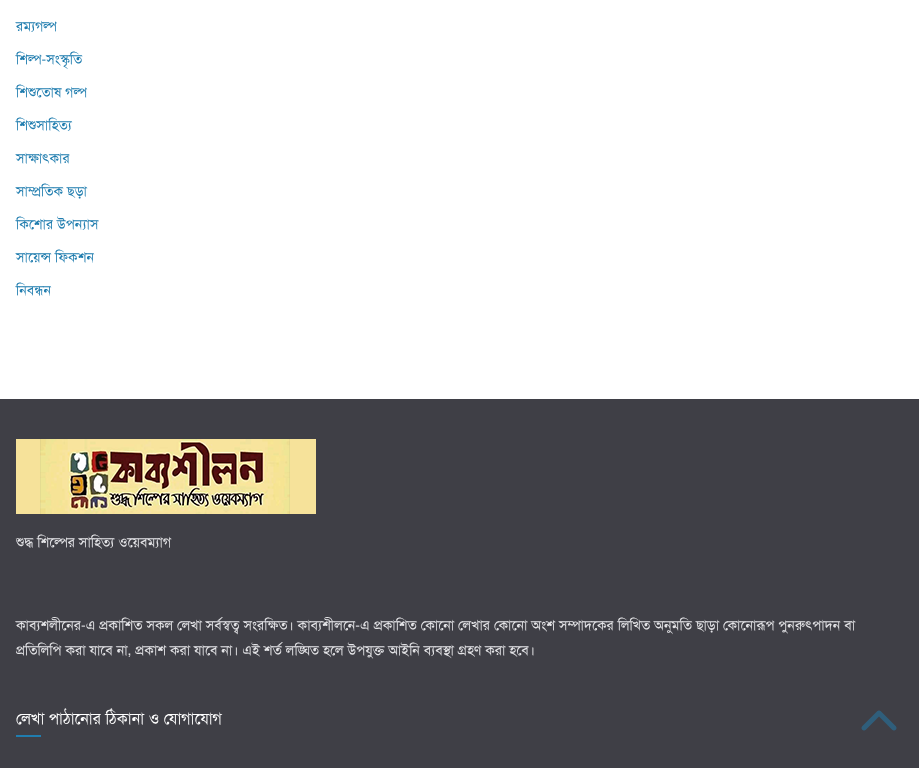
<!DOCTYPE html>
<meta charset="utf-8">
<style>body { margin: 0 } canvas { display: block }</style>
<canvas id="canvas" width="919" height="768"></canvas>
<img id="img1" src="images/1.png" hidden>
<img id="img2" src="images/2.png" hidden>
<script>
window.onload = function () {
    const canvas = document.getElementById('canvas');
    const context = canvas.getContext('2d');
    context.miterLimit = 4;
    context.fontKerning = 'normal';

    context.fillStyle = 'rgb(255, 255, 255)';
    context.fillRect(0, 0, 919, 768);
    context.fillStyle = 'rgb(63, 63, 70)';
    context.fillRect(0, 399, 919, 369);
    context.drawImage(document.getElementById('img1'), 16, 439, 300, 75);
    context.fillStyle = 'rgb(32, 125, 175)';
    context.fillRect(16, 735, 25, 2);
    context.drawImage(document.getElementById('img2'), 861, 710, 36, 21);
    context.font = '14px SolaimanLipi';
    context.fillText('রম্যগল্প', 16, 31);
    context.fillText('শিল্প-সংস্কৃতি', 16, 64);
    context.fillText('শিশুতোষ গল্প', 16, 97);
    context.fillText('শিশুসাহিত্য', 16, 130);
    context.fillText('সাক্ষাৎকার', 16, 163);
    context.fillText('সাম্প্রতিক ছড়া', 16, 196);
    context.fillText('কিশোর উপন্যাস', 16, 229);
    context.fillText('সায়েন্স ফিকশন', 16, 262);
    context.fillText('নিবন্ধন', 16, 295);
    context.fillStyle = 'rgb(228, 228, 231)';
    context.fillText('শুদ্ধ শিল্পের সাহিত্য ওয়েবম্যাগ', 16, 547);
    context.fillText('কাব্যশলীনের-এ প্রকাশিত সকল লেখা সর্বস্বত্ব সংরক্ষিত। কাব্যশীলনে-এ প্রকাশিত কোনো লেখার কোনো অংশ সম্পাদকের লিখিত অনুমতি ছাড়া কোনোরূপ পুনরুৎপাদন বা', 16, 630);
    context.fillText('প্রতিলিপি করা যাবে না, প্রকাশ করা যাবে না। এই শর্ত লঙ্ঘিত হলে উপযুক্ত আইনি ব্যবস্থা গ্রহণ করা হবে।', 16, 655);
    context.font = '16px SolaimanLipi';
    context.fillStyle = 'rgb(255, 255, 255)';
    context.fillText('লেখা পাঠানোর ঠিকানা ও যোগাযোগ', 16, 724);
};
</script>
